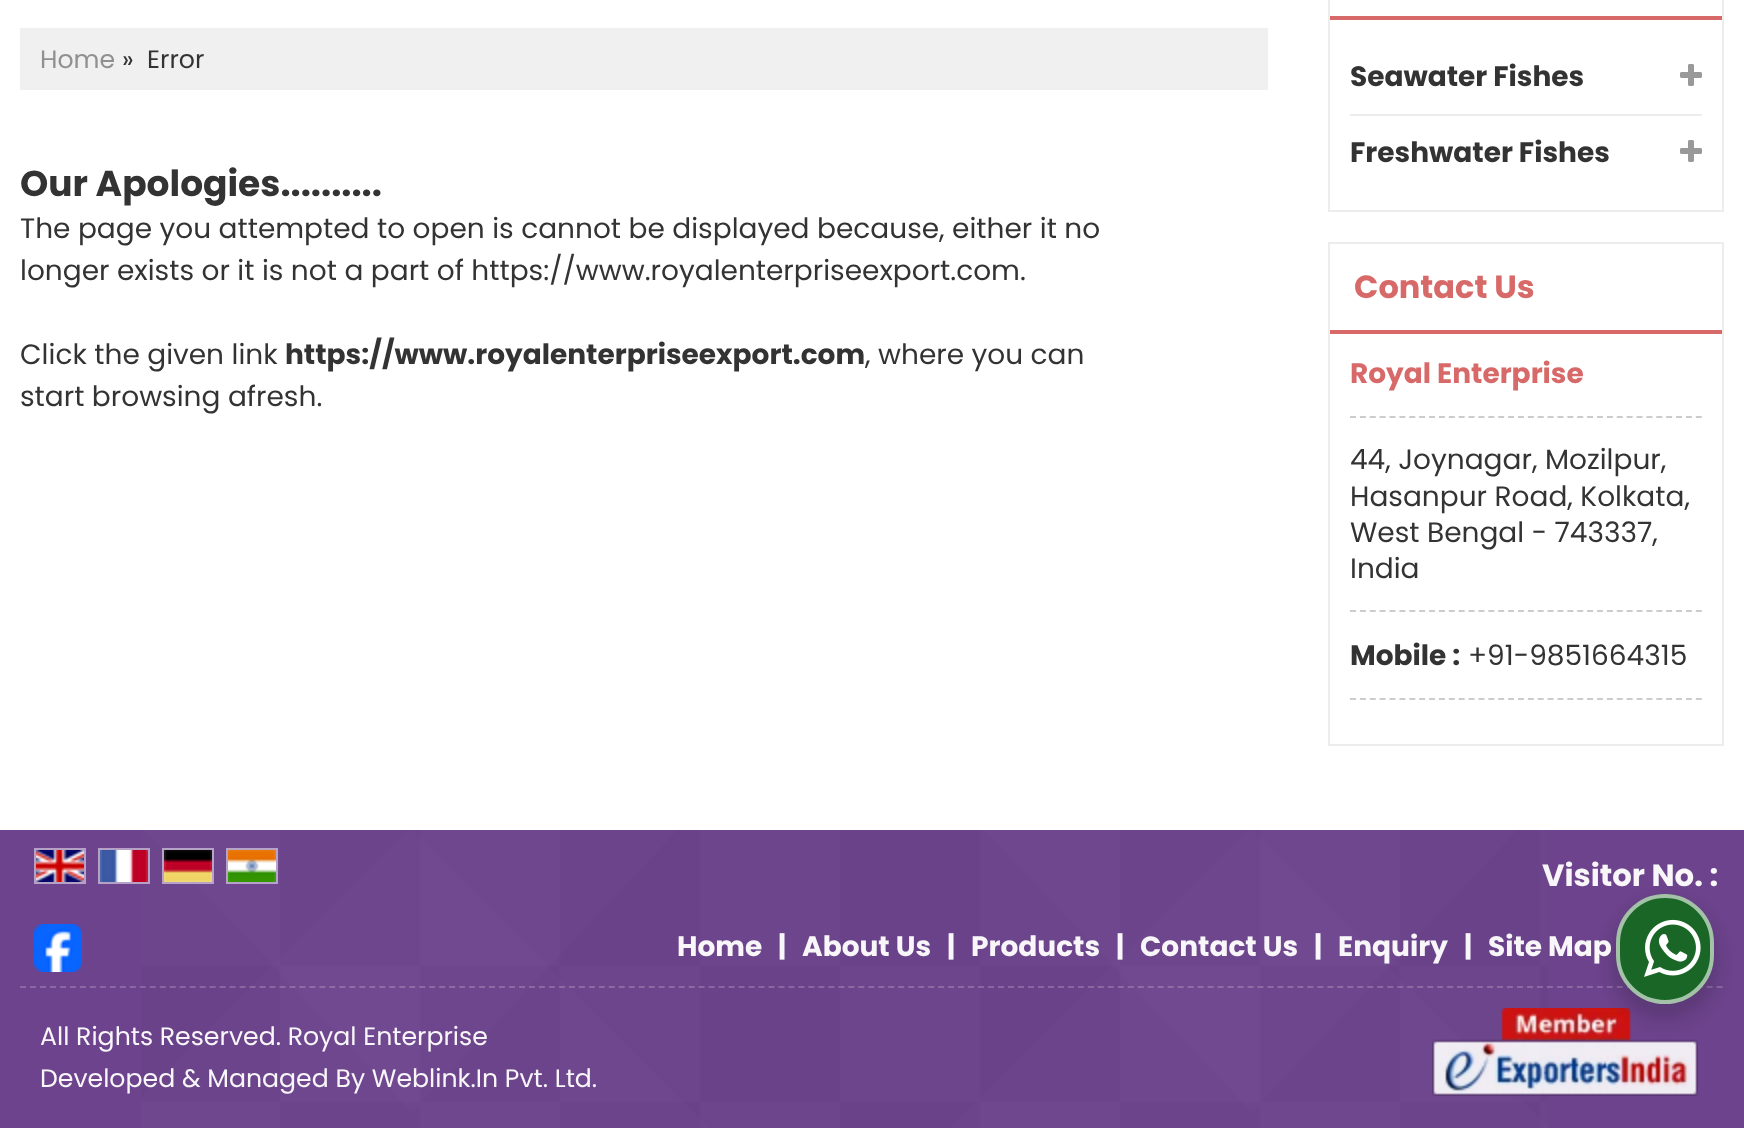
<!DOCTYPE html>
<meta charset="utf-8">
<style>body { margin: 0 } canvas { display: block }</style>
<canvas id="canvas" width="1744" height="1128"></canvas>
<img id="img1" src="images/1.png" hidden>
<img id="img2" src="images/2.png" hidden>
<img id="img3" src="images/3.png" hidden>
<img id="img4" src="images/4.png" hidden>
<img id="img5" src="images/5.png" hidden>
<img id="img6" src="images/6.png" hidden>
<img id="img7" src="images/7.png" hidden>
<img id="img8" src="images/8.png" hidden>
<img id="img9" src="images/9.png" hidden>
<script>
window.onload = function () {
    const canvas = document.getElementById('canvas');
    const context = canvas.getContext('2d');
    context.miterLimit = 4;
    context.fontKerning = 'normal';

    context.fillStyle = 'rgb(255, 255, 255)';
    context.fillRect(0, 0, 1744, 1128);
    context.fillStyle = 'rgb(240, 240, 240)';
    context.fillRect(20, 28, 1248, 62);
    context.strokeStyle = 'rgb(237, 237, 237)';
    context.lineWidth = 2;
    context.strokeRect(1329, -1, 394, 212);
    context.fillStyle = 'rgb(216, 105, 105)';
    context.fillRect(1330, 16, 392, 4);
    context.fillStyle = 'rgb(237, 237, 237)';
    context.fillRect(1350, 114, 352, 2);
    context.drawImage(document.getElementById('img1'), 1680, 64, 22, 22);
    context.drawImage(document.getElementById('img1'), 1680, 140, 22, 22);
    context.strokeRect(1329, 243, 394, 502);
    context.fillStyle = 'rgb(216, 105, 105)';
    context.fillRect(1330, 330, 392, 4);
    context.beginPath();
    context.moveTo(1350, 417);
    context.lineTo(1702, 417);
    context.strokeStyle = 'rgb(204, 204, 204)';
    context.setLineDash([6, 3.88]);
    context.stroke();
    context.beginPath();
    context.moveTo(1350, 611);
    context.lineTo(1702, 611);
    context.stroke();
    context.beginPath();
    context.moveTo(1350, 699);
    context.lineTo(1702, 699);
    context.stroke();
    context.fillStyle = 'rgb(108, 67, 140)';
    context.fillRect(0, 830, 1744, 298);
    context.drawImage(document.getElementById('img2'), 141, 830, 1407, 298);
    context.strokeStyle = 'rgb(182, 161, 198)';
    context.setLineDash([]);
    context.strokeRect(35, 849, 50, 34);
    context.strokeRect(99, 849, 50, 34);
    context.strokeStyle = 'rgb(183, 163, 199)';
    context.strokeRect(163, 849, 50, 34);
    context.strokeRect(227, 849, 50, 34);
    context.drawImage(document.getElementById('img3'), 36, 850, 48, 32);
    context.drawImage(document.getElementById('img4'), 100, 850, 48, 32);
    context.drawImage(document.getElementById('img5'), 164, 850, 48, 32);
    context.drawImage(document.getElementById('img6'), 228, 850, 48, 32);
    context.drawImage(document.getElementById('img7'), 34, 924, 48, 48);
    context.beginPath();
    context.moveTo(20, 987);
    context.lineTo(1724, 987);
    context.strokeStyle = 'rgba(255, 255, 255, 0.2)';
    context.setLineDash([6, 3.98]);
    context.stroke();
    context.drawImage(document.getElementById('img8'), 1432, 1008, 266, 88);
    context.fillStyle = 'rgba(0, 0, 0, 0.14)';
    context.filter = 'blur(8px)';
    context.beginPath();
    context.roundRect(1612, 902, 106, 118, 53);
    context.fill();
    context.filter = 'none';
    context.fillStyle = 'rgb(25, 102, 38)';
    context.beginPath();
    context.roundRect(1616, 894, 98, 110, 49);
    context.fill();
    context.beginPath();
    context.roundRect(1618, 896, 94, 106, 47);
    context.strokeStyle = 'rgba(255, 255, 255, 0.6)';
    context.lineWidth = 4;
    context.setLineDash([]);
    context.stroke();
    context.drawImage(document.getElementById('img9'), 1644, 919, 57, 58);
    context.font = '25.2px Poppins';
    context.fillStyle = 'rgb(144, 144, 144)';
    context.fillText('Home', 40, 68);
    context.fillStyle = 'rgb(51, 51, 51)';
    context.fillText('»  Error', 122, 68);
    context.font = 'bold 36px Poppins';
    context.fillText('Our Apologies..........', 20, 196);
    context.font = '28px Poppins';
    context.fillText('The page you attempted to open is cannot be displayed because, either it no', 20, 238);
    context.fillText('longer exists or it is not a part of https://www.royalenterpriseexport.com.', 20, 280);
    context.fillText('Click the given link', 20, 364);
    context.font = 'bold 28px Poppins';
    context.fillText('https://www.royalenterpriseexport.com', 285, 364);
    context.font = '28px Poppins';
    context.fillText(', where you can', 865, 364);
    context.fillText('start browsing afresh.', 20, 406);
    context.font = 'bold 28px Poppins';
    context.fillText('Seawater Fishes', 1350, 86);
    context.fillText('Freshwater Fishes', 1350, 162);
    context.font = 'bold 32px Poppins';
    context.fillStyle = 'rgb(216, 105, 105)';
    context.fillText('Contact Us', 1354, 298);
    context.font = 'bold 28px Poppins';
    context.fillText('Royal Enterprise', 1350, 383);
    context.font = '28px Poppins';
    context.fillStyle = 'rgb(51, 51, 51)';
    context.fillText('44, Joynagar, Mozilpur,', 1350, 469);
    context.fillText('Hasanpur Road, Kolkata,', 1350, 506);
    context.fillText('West Bengal - 743337,', 1350, 542);
    context.fillText('India', 1350, 578);
    context.font = 'bold 28px Poppins';
    context.fillText('Mobile :', 1350, 665);
    context.font = '28px Poppins';
    context.fillText('+91-9851664315', 1468, 665);
    context.font = 'bold 30.75px Poppins';
    context.fillStyle = 'rgb(248, 246, 249)';
    context.fillText('Visitor No. :', 1542, 886);
    context.font = 'bold 28px Poppins';
    context.fillText('Home', 677, 956);
    context.fillText('|', 778, 956);
    context.fillText('About Us', 802, 956);
    context.fillText('|', 947, 956);
    context.fillText('Products', 971, 956);
    context.fillText('|', 1116, 956);
    context.fillText('Contact Us', 1140, 956);
    context.fillText('|', 1314, 956);
    context.fillText('Enquiry', 1338, 956);
    context.fillText('|', 1464, 956);
    context.fillText('Site Map', 1488, 956);
    context.font = '25.2px Poppins';
    context.fillText('All Rights Reserved. Royal Enterprise', 40, 1045);
    context.fillText('Developed & Managed By Weblink.In Pvt. Ltd.', 40, 1087);
};
</script>
